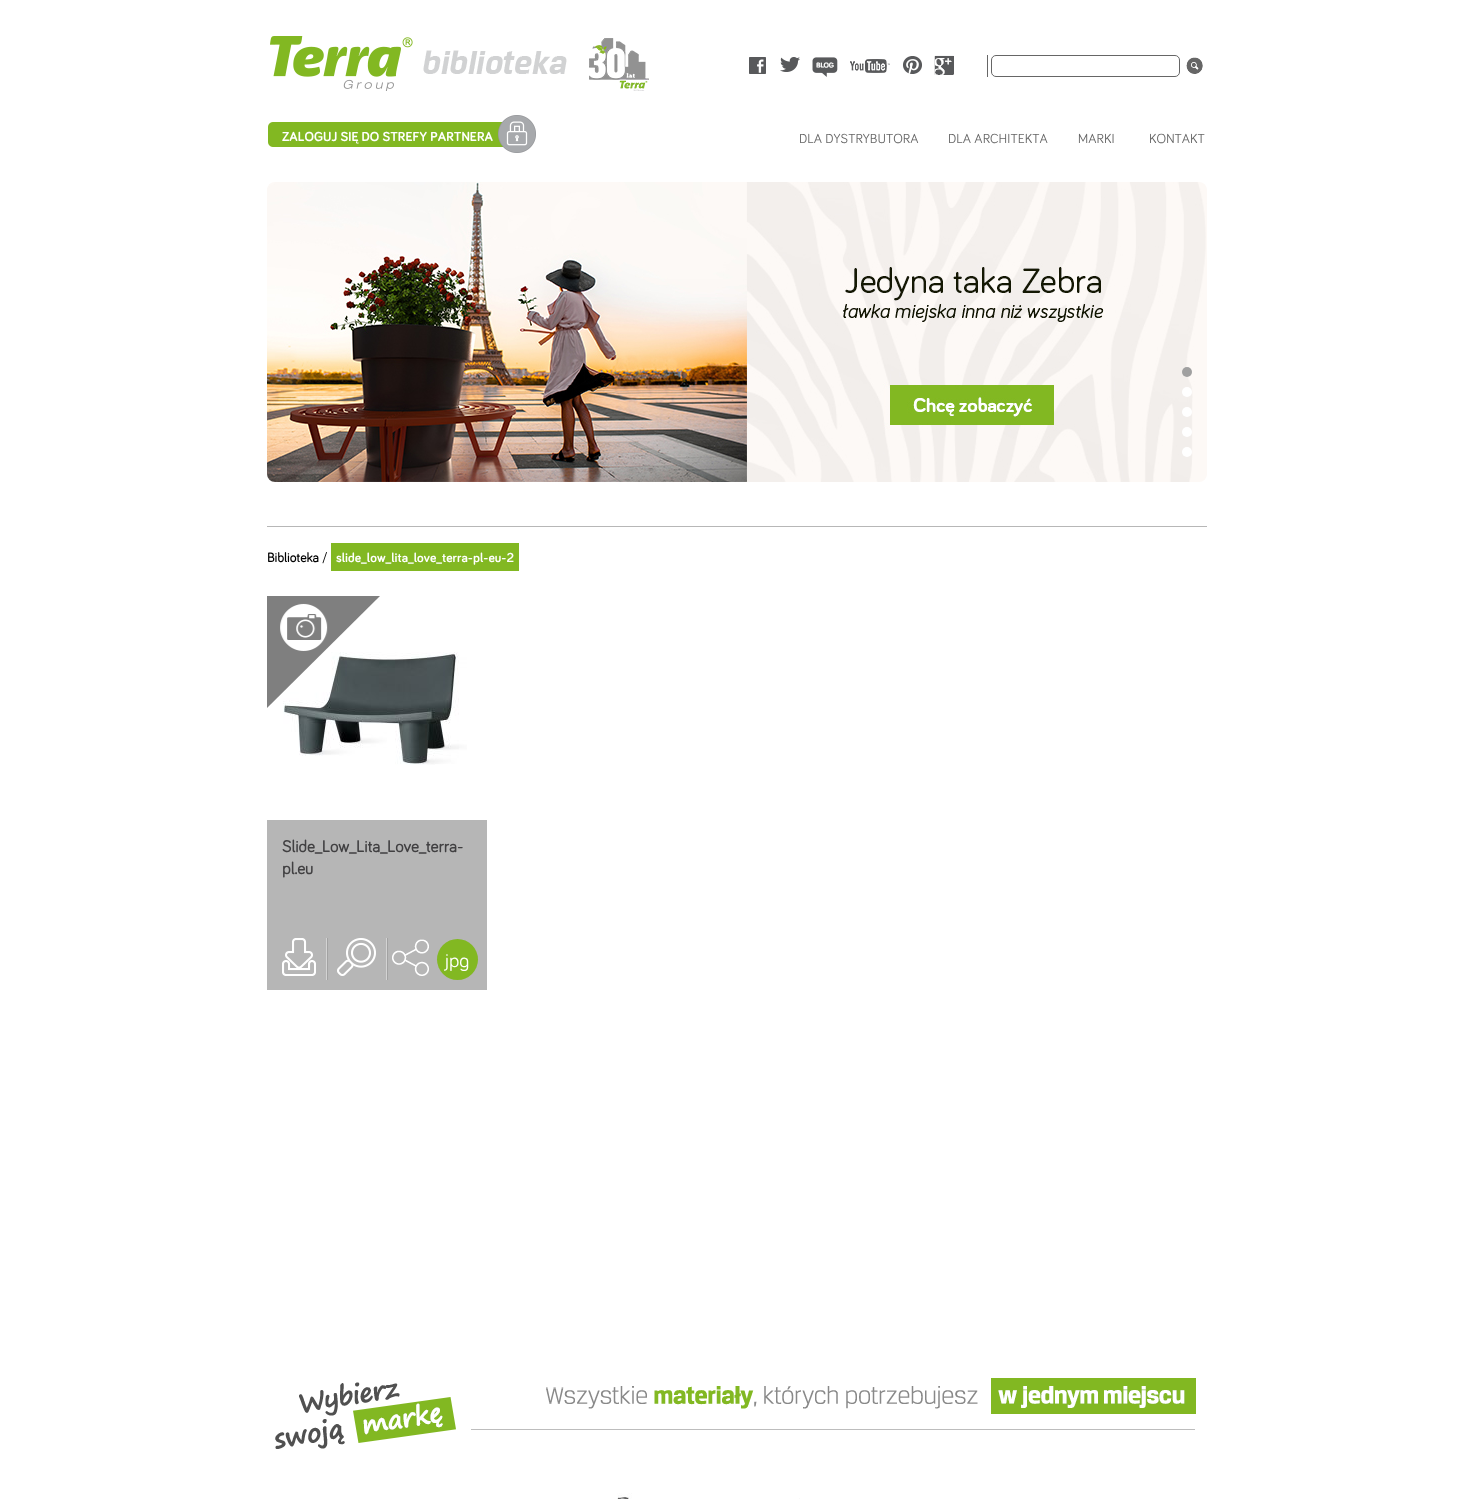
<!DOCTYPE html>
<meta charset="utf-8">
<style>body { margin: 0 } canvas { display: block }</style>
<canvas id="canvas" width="1473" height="1499"></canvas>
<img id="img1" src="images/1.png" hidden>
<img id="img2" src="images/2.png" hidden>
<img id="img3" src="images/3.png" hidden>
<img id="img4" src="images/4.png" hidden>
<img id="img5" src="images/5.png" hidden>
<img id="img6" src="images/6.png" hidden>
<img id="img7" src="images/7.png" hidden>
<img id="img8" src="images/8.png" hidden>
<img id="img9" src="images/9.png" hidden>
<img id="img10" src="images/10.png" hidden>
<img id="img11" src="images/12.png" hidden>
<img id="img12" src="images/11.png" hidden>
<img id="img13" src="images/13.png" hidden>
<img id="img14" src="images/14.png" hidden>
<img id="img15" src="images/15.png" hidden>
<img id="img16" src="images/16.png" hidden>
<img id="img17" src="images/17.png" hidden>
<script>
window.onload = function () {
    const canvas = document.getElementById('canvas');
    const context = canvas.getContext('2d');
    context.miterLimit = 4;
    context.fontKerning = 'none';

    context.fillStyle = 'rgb(255, 255, 255)';
    context.fillRect(0, 0, 1473, 1499);
    context.drawImage(document.getElementById('img1'), 270, 36, 379, 55);
    context.drawImage(document.getElementById('img2'), 749, 57, 17, 17);
    context.drawImage(document.getElementById('img3'), 780, 57, 20, 15);
    context.drawImage(document.getElementById('img4'), 812, 57, 26, 20);
    context.drawImage(document.getElementById('img5'), 850, 59, 40, 14);
    context.drawImage(document.getElementById('img6'), 903, 56, 19, 18);
    context.drawImage(document.getElementById('img7'), 934, 55, 20, 20);
    context.fillStyle = 'rgb(102, 102, 102)';
    context.fillRect(987, 55, 1, 22);
    context.beginPath();
    context.roundRect(991.5, 55.5, 188, 21, 4.5);
    context.strokeStyle = 'rgb(102, 102, 102)';
    context.stroke();
    context.drawImage(document.getElementById('img8'), 1186, 57, 17, 17);
    context.drawImage(document.getElementById('img9'), 268, 115, 268, 38);
    context.drawImage(document.getElementById('img10'), 267, 182, 940, 300);
    context.fillStyle = 'rgb(160, 160, 160)';
    context.beginPath();
    context.arc(1187, 372, 5, 0, 2 * Math.PI);
    context.fill();
    context.fillStyle = 'rgb(255, 255, 255)';
    context.beginPath();
    context.arc(1187, 392, 5, 0, 2 * Math.PI);
    context.fill();
    context.beginPath();
    context.arc(1187, 412, 5, 0, 2 * Math.PI);
    context.fill();
    context.beginPath();
    context.arc(1187, 432, 5, 0, 2 * Math.PI);
    context.fill();
    context.beginPath();
    context.arc(1187, 452, 5, 0, 2 * Math.PI);
    context.fill();
    context.fillStyle = 'rgb(183, 183, 183)';
    context.fillRect(267, 526, 940, 1);
    context.fillStyle = 'rgb(130, 184, 34)';
    context.fillRect(331, 543, 188, 28);
    context.drawImage(document.getElementById('img11'), 283, 652, 184, 113);
    context.save();
    context.beginPath();
    context.rect(267, 596, 220, 394);
    context.clip();
    context.fillStyle = 'rgb(127, 127, 127)';
    context.beginPath();
    context.moveTo(380, 596);
    context.lineTo(266, 709);
    context.lineTo(266, 596);
    context.closePath();
    context.fill();
    context.restore();
    context.drawImage(document.getElementById('img12'), 280, 603, 48, 48);
    context.fillStyle = 'rgb(182, 182, 182)';
    context.fillRect(267, 820, 220, 170);
    context.fillStyle = 'rgb(162, 162, 162)';
    context.fillRect(327, 938, 1, 42);
    context.fillStyle = 'rgb(211, 211, 211)';
    context.fillRect(326, 938, 1, 42);
    context.drawImage(document.getElementById('img13'), 282, 938, 34, 38);
    context.fillStyle = 'rgb(162, 162, 162)';
    context.fillRect(387, 938, 1, 42);
    context.fillStyle = 'rgb(211, 211, 211)';
    context.fillRect(386, 938, 1, 42);
    context.drawImage(document.getElementById('img14'), 337, 938, 39, 38);
    context.drawImage(document.getElementById('img15'), 392, 939, 37, 37);
    context.fillStyle = 'rgb(130, 184, 34)';
    context.beginPath();
    context.arc(457.5, 959.5, 20.5, 0, 2 * Math.PI);
    context.fill();
    context.drawImage(document.getElementById('img16'), 275, 1378, 921, 71);
    context.drawImage(document.getElementById('img17'), 617, 1493, 15, 6);
    context.fillStyle = 'rgb(249, 249, 249)';
    context.fillRect(799, 1498, 1, 1);
    context.font = 'bold 12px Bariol';
    context.fillStyle = 'rgb(255, 255, 255)';
    context.fillText('ZALOGUJ SIĘ DO STREFY PARTNERA', 282, 141);
    context.font = '12px Bariol';
    context.fillStyle = 'rgb(102, 102, 102)';
    context.fillText('DLA DYSTRYBUTORA', 799, 143);
    context.fillText('DLA ARCHITEKTA', 948, 143);
    context.fillText('MARKI', 1078, 143);
    context.fillText('KONTAKT', 1149, 143);
    context.font = 'bold 12px "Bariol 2"';
    context.fillStyle = 'rgb(0, 0, 0)';
    context.fillText('Biblioteka', 267, 562);
    context.font = '12px Bariol';
    context.fillText('/', 322, 562);
    context.font = 'bold 12px Bariol';
    context.fillStyle = 'rgb(255, 255, 255)';
    context.fillText('slide_low_lita_love_terra-pl-eu-2', 336, 562);
    context.font = 'bold 15px "Bariol 2"';
    context.fillStyle = 'rgb(65, 64, 66)';
    context.fillText('Slide_Low_Lita_Love_terra-', 282, 852);
    context.fillText('pl.eu', 282, 874);
    context.font = '18px Bariol';
    context.fillStyle = 'rgb(255, 255, 255)';
    context.fillText('jpg', 445, 967);
};
</script>
